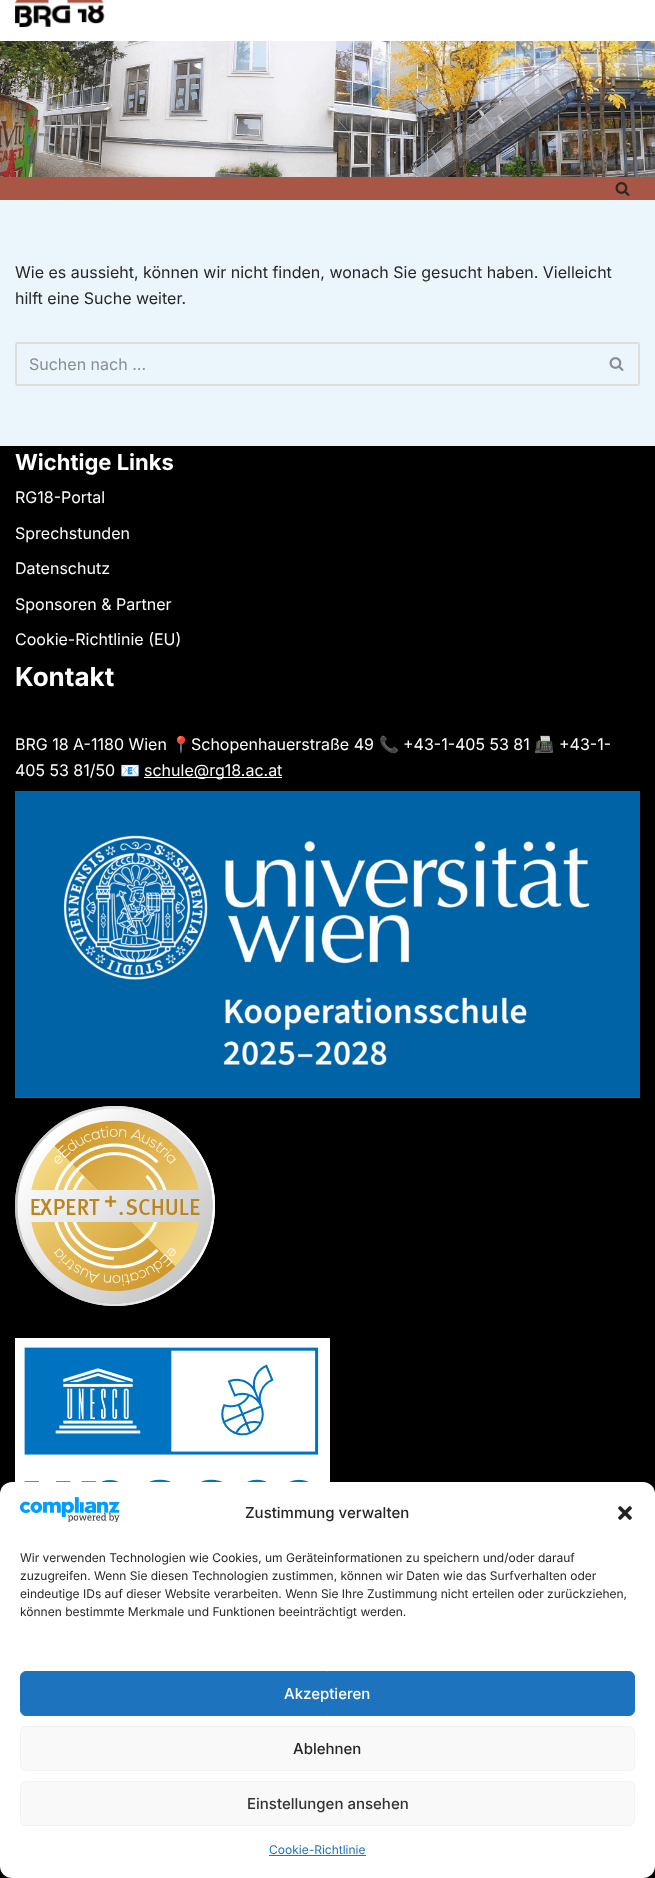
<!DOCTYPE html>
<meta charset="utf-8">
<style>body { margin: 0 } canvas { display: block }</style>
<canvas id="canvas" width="655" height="1878"></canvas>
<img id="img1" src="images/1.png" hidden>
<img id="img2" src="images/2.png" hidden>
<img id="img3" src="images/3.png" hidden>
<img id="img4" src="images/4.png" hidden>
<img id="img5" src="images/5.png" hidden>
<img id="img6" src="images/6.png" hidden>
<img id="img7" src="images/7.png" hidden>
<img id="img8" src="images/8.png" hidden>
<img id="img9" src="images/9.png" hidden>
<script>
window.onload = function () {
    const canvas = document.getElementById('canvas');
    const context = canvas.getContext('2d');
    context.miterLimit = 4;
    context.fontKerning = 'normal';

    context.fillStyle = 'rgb(234, 245, 252)';
    context.fillRect(0, 0, 655, 1878);
    context.fillStyle = 'rgb(255, 255, 255)';
    context.fillRect(0, 0, 655, 41);
    context.drawImage(document.getElementById('img1'), 15, 0, 90, 27);
    context.drawImage(document.getElementById('img2'), 0, 41, 655, 136);
    context.fillStyle = 'rgb(168, 86, 70)';
    context.fillRect(0, 177, 655, 23);
    context.drawImage(document.getElementById('img3'), 615, 182, 15, 14);
    context.fillStyle = 'rgb(221, 221, 221)';
    context.beginPath();
    context.moveTo(18, 342);
    context.lineTo(595, 342);
    context.lineTo(595, 386);
    context.lineTo(18, 386);
    context.bezierCurveTo(16, 386, 15, 385, 15, 383);
    context.lineTo(15, 345);
    context.bezierCurveTo(15, 343, 16, 342, 18, 342);
    context.closePath();
    context.moveTo(18, 344);
    context.lineTo(595, 344);
    context.lineTo(595, 384);
    context.lineTo(18, 384);
    context.bezierCurveTo(17, 384, 17, 384, 17, 383);
    context.lineTo(17, 345);
    context.bezierCurveTo(17, 344, 17, 344, 18, 344);
    context.closePath();
    context.fill('evenodd');
    context.beginPath();
    context.moveTo(595, 342);
    context.lineTo(637, 342);
    context.bezierCurveTo(639, 342, 640, 343, 640, 345);
    context.lineTo(640, 383);
    context.bezierCurveTo(640, 385, 639, 386, 637, 386);
    context.lineTo(595, 386);
    context.closePath();
    context.moveTo(595, 344);
    context.lineTo(637, 344);
    context.bezierCurveTo(638, 344, 638, 344, 638, 345);
    context.lineTo(638, 383);
    context.bezierCurveTo(638, 384, 638, 384, 637, 384);
    context.lineTo(595, 384);
    context.closePath();
    context.fill('evenodd');
    context.drawImage(document.getElementById('img4'), 609, 357, 15, 14);
    context.fillStyle = 'rgb(0, 0, 0)';
    context.fillRect(0, 446, 655, 1432);
    context.fillStyle = 'rgb(255, 254, 254)';
    context.fillRect(144, 777, 138, 1);
    context.drawImage(document.getElementById('img5'), 15, 791, 625, 307);
    context.drawImage(document.getElementById('img6'), 15, 1106, 200, 200);
    context.drawImage(document.getElementById('img7'), 15, 1338, 315, 144);
    context.fillStyle = 'rgb(255, 255, 255)';
    context.beginPath();
    context.roundRect(0, 1482, 655, 396, 12);
    context.fill();
    context.drawImage(document.getElementById('img8'), 20, 1497, 100, 25);
    context.drawImage(document.getElementById('img9'), 618, 1506, 14, 14);
    context.fillStyle = 'rgb(30, 115, 190)';
    context.beginPath();
    context.roundRect(20.5, 1671.5, 614, 44, 5.5);
    context.fill();
    context.strokeStyle = 'rgb(30, 115, 190)';
    context.stroke();
    context.fillStyle = 'rgb(249, 249, 249)';
    context.beginPath();
    context.roundRect(20.5, 1726.5, 614, 44, 5.5);
    context.fill();
    context.strokeStyle = 'rgb(242, 242, 242)';
    context.stroke();
    context.beginPath();
    context.roundRect(20.5, 1781.5, 614, 44, 5.5);
    context.fill();
    context.stroke();
    context.fillStyle = 'rgb(30, 115, 190)';
    context.fillRect(269, 1855, 97, 1);
    context.font = '16px Inter';
    context.fillStyle = 'rgb(39, 38, 38)';
    context.fillText('Wie es aussieht, können wir nicht finden, wonach Sie gesucht haben. Vielleicht', 15, 278);
    context.fillText('hilft eine Suche weiter.', 15, 304);
    context.fillStyle = 'rgb(137, 142, 145)';
    context.fillText('Suchen nach …', 29, 370);
    context.font = 'bold 22px Inter';
    context.fillStyle = 'rgb(255, 254, 254)';
    context.fillText('Wichtige Links', 15, 470);
    context.font = '16px Inter';
    context.fillText('RG18-Portal', 15, 503);
    context.fillText('Sprechstunden', 15, 539);
    context.fillText('Datenschutz', 15, 574);
    context.fillText('Sponsoren & Partner', 15, 610);
    context.fillText('Cookie-Richtlinie (EU)', 15, 645);
    context.font = 'bold 26px Inter';
    context.fillText('Kontakt', 15, 686);
    context.font = '16px Inter';
    context.fillText('BRG 18 A-1180 Wien', 15, 750);
    context.font = '16px Noto Color Emoji';
    context.fillText('📍', 171, 750);
    context.font = '16px Inter';
    context.fillText('Schopenhauerstraße 49', 191, 750);
    context.font = '16px Noto Color Emoji';
    context.fillText('📞', 379, 750);
    context.font = '16px Inter';
    context.fillText('+43-1-405 53 81', 403, 750);
    context.font = '16px Noto Color Emoji';
    context.fillText('📠', 534, 750);
    context.font = '16px Inter';
    context.fillText('+43-1-', 559, 750);
    context.fillText('405 53 81/50', 15, 776);
    context.font = '16px Noto Color Emoji';
    context.fillText('📧', 120, 776);
    context.font = '16px Inter';
    context.fillText('schule@rg18.ac.at', 144, 776);
    context.font = '500 15px Inter';
    context.fillStyle = 'rgb(39, 38, 38)';
    context.fillText('Zustimmung verwalten', 245, 1518);
    context.font = '12px Inter';
    context.fillText('Wir verwenden Technologien wie Cookies, um Geräteinformationen zu speichern und/oder darauf', 20, 1562);
    context.fillText('zuzugreifen. Wenn Sie diesen Technologien zustimmen, können wir Daten wie das Surfverhalten oder', 20, 1580);
    context.fillText('eindeutige IDs auf dieser Website verarbeiten. Wenn Sie Ihre Zustimmung nicht erteilen oder zurückziehen,', 20, 1598);
    context.fillText('können bestimmte Merkmale und Funktionen beeinträchtigt werden.', 20, 1616);
    context.font = '500 15px Inter';
    context.fillStyle = 'rgb(255, 254, 254)';
    context.fillText('Akzeptieren', 284, 1699);
    context.fillStyle = 'rgb(39, 38, 38)';
    context.fillText('Ablehnen', 293, 1754);
    context.fillStyle = 'rgb(51, 51, 51)';
    context.fillText('Einstellungen ansehen', 247, 1809);
    context.font = '12px Inter';
    context.fillStyle = 'rgb(30, 115, 190)';
    context.fillText('Cookie-Richtlinie', 269, 1854);
};
</script>
